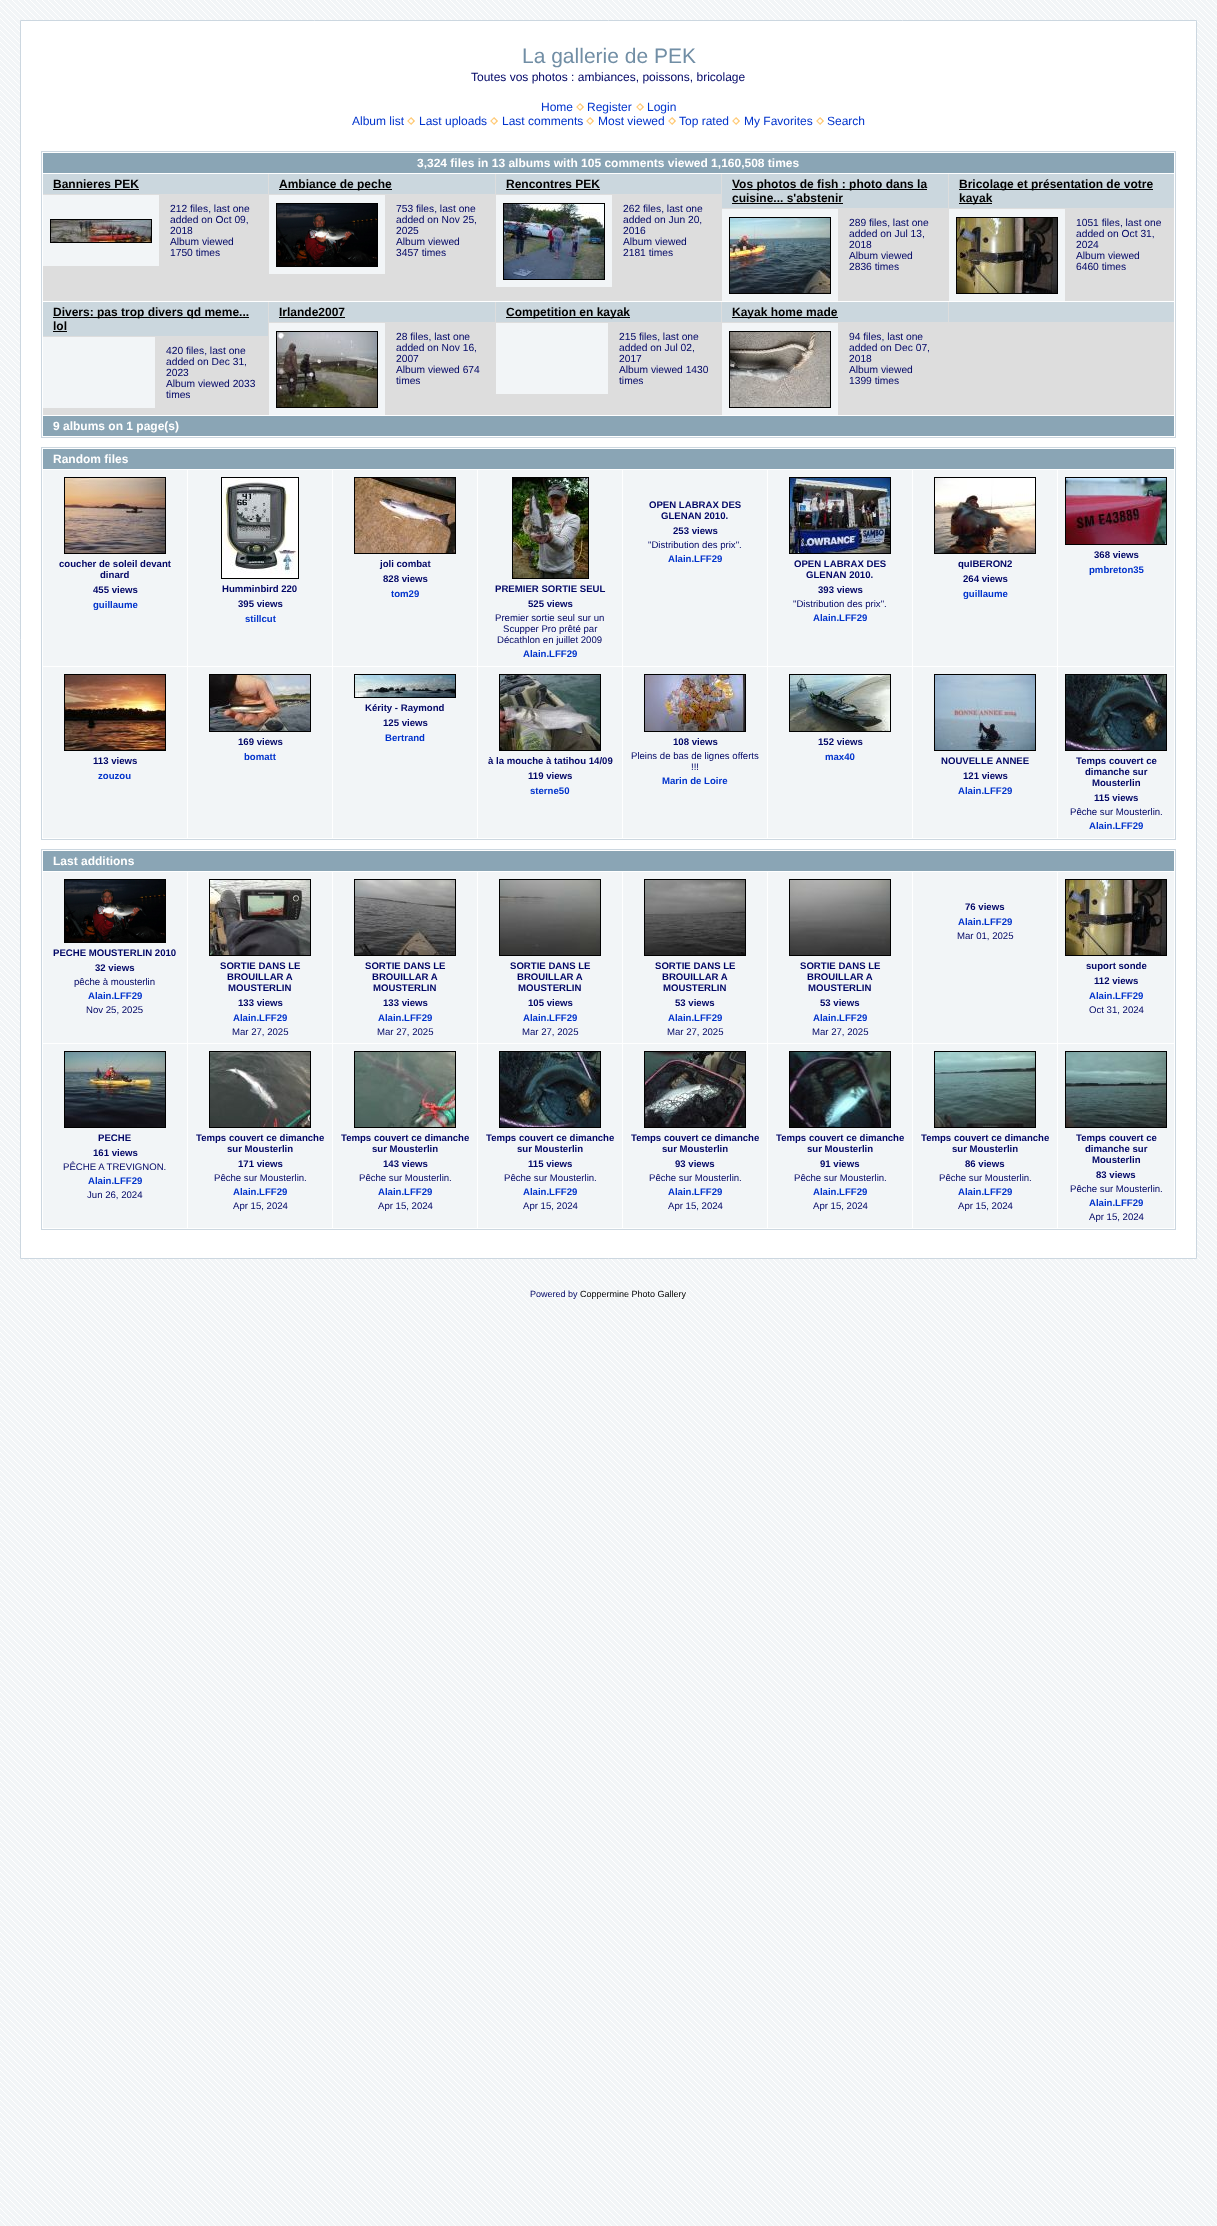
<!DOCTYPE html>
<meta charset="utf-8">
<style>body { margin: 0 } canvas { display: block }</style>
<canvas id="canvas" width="1217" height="2226"></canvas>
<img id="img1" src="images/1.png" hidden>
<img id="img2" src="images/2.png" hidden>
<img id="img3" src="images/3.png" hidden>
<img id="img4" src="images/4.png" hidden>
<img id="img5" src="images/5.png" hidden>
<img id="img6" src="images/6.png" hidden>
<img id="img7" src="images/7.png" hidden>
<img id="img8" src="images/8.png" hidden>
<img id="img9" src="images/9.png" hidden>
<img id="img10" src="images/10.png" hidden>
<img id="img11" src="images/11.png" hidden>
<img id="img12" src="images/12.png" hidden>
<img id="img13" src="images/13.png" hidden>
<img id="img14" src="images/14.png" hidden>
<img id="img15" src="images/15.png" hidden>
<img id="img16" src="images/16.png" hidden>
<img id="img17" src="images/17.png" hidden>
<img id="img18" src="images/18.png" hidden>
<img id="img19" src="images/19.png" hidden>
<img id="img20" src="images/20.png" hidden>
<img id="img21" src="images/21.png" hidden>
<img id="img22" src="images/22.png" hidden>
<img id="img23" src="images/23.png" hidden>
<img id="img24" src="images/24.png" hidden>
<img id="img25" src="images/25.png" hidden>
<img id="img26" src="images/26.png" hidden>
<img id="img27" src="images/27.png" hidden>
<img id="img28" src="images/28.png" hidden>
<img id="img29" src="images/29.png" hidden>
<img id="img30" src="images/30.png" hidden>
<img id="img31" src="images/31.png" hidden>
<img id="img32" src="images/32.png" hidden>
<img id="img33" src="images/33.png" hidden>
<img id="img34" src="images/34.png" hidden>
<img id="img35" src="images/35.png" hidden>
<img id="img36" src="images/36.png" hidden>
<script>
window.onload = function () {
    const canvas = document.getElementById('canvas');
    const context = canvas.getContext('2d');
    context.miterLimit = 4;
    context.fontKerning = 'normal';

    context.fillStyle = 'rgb(242, 245, 247)';
    context.fillRect(0, 0, 1217, 2226);
    context.drawImage(document.getElementById('img1'), 0, 0, 1217, 2226);
    context.fillStyle = 'rgb(255, 255, 255)';
    context.beginPath();
    context.rect(20.5, 20.5, 1176, 1238);
    context.fill();
    context.strokeStyle = 'rgb(204, 215, 224)';
    context.stroke();
    context.drawImage(document.getElementById('img2'), 576, 103, 8, 8);
    context.drawImage(document.getElementById('img2'), 636, 103, 8, 8);
    context.drawImage(document.getElementById('img2'), 407, 117, 8, 8);
    context.drawImage(document.getElementById('img2'), 490, 117, 8, 8);
    context.drawImage(document.getElementById('img2'), 586, 117, 8, 8);
    context.drawImage(document.getElementById('img2'), 668, 117, 8, 8);
    context.drawImage(document.getElementById('img2'), 732, 117, 8, 8);
    context.drawImage(document.getElementById('img2'), 816, 117, 8, 8);
    context.strokeRect(41.5, 151.5, 1134, 286);
    context.fillStyle = 'rgb(138, 165, 181)';
    context.fillRect(43, 153, 1131, 20);
    context.fillStyle = 'rgb(221, 221, 221)';
    context.fillRect(43, 174, 1131, 127);
    context.fillStyle = 'rgb(203, 215, 222)';
    context.fillRect(43, 174, 225, 20);
    context.fillStyle = 'rgb(0, 0, 0)';
    context.fillRect(53, 189, 86, 1);
    context.fillStyle = 'rgb(242, 245, 247)';
    context.fillRect(43, 195, 116, 71);
    context.strokeStyle = 'rgb(0, 0, 0)';
    context.strokeRect(50.5, 219.5, 101, 23);
    context.drawImage(document.getElementById('img3'), 51, 220, 100, 22);
    context.fillStyle = 'rgb(203, 215, 222)';
    context.fillRect(269, 174, 226, 20);
    context.fillStyle = 'rgb(0, 0, 0)';
    context.fillRect(279, 189, 113, 1);
    context.fillStyle = 'rgb(242, 245, 247)';
    context.fillRect(269, 195, 116, 79);
    context.strokeRect(276.5, 203.5, 101, 63);
    context.drawImage(document.getElementById('img4'), 277, 204, 100, 62);
    context.fillStyle = 'rgb(203, 215, 222)';
    context.fillRect(496, 174, 225, 20);
    context.fillStyle = 'rgb(0, 0, 0)';
    context.fillRect(506, 189, 94, 1);
    context.fillStyle = 'rgb(242, 245, 247)';
    context.fillRect(496, 195, 116, 92);
    context.strokeRect(503.5, 203.5, 101, 76);
    context.drawImage(document.getElementById('img5'), 504, 204, 100, 75);
    context.fillStyle = 'rgb(203, 215, 222)';
    context.fillRect(722, 174, 226, 34);
    context.fillStyle = 'rgb(0, 0, 0)';
    context.fillRect(732, 189, 195, 1);
    context.fillRect(732, 203, 111, 1);
    context.fillStyle = 'rgb(242, 245, 247)';
    context.fillRect(722, 209, 116, 92);
    context.strokeRect(729.5, 217.5, 101, 76);
    context.drawImage(document.getElementById('img6'), 730, 218, 100, 75);
    context.fillStyle = 'rgb(203, 215, 222)';
    context.fillRect(949, 174, 225, 34);
    context.fillStyle = 'rgb(0, 0, 0)';
    context.fillRect(959, 189, 194, 1);
    context.fillRect(959, 203, 33, 1);
    context.fillStyle = 'rgb(242, 245, 247)';
    context.fillRect(949, 209, 116, 92);
    context.strokeRect(956.5, 217.5, 101, 76);
    context.drawImage(document.getElementById('img7'), 957, 218, 100, 75);
    context.fillStyle = 'rgb(221, 221, 221)';
    context.fillRect(43, 302, 1131, 113);
    context.fillStyle = 'rgb(203, 215, 222)';
    context.fillRect(43, 302, 225, 34);
    context.fillStyle = 'rgb(0, 0, 0)';
    context.fillRect(53, 317, 196, 1);
    context.fillRect(53, 331, 14, 1);
    context.fillStyle = 'rgb(242, 245, 247)';
    context.fillRect(43, 337, 112, 71);
    context.fillStyle = 'rgb(203, 215, 222)';
    context.fillRect(269, 302, 226, 20);
    context.fillStyle = 'rgb(0, 0, 0)';
    context.fillRect(279, 317, 66, 1);
    context.fillStyle = 'rgb(242, 245, 247)';
    context.fillRect(269, 323, 116, 92);
    context.strokeRect(276.5, 331.5, 101, 76);
    context.drawImage(document.getElementById('img8'), 277, 332, 100, 75);
    context.fillStyle = 'rgb(203, 215, 222)';
    context.fillRect(496, 302, 225, 20);
    context.fillStyle = 'rgb(0, 0, 0)';
    context.fillRect(506, 317, 124, 1);
    context.fillStyle = 'rgb(242, 245, 247)';
    context.fillRect(496, 323, 112, 71);
    context.fillStyle = 'rgb(203, 215, 222)';
    context.fillRect(722, 302, 226, 20);
    context.fillStyle = 'rgb(0, 0, 0)';
    context.fillRect(732, 317, 106, 1);
    context.fillStyle = 'rgb(242, 245, 247)';
    context.fillRect(722, 323, 116, 92);
    context.strokeRect(729.5, 331.5, 101, 76);
    context.drawImage(document.getElementById('img9'), 730, 332, 100, 75);
    context.fillStyle = 'rgb(203, 215, 222)';
    context.fillRect(949, 302, 225, 20);
    context.fillStyle = 'rgb(138, 165, 181)';
    context.fillRect(43, 416, 1131, 20);
    context.strokeStyle = 'rgb(204, 215, 224)';
    context.strokeRect(41.5, 447.5, 1134, 392);
    context.fillRect(43, 449, 1131, 20);
    context.fillStyle = 'rgb(242, 245, 247)';
    context.fillRect(43, 470, 144, 196);
    context.strokeStyle = 'rgb(0, 0, 0)';
    context.strokeRect(64.5, 477.5, 101, 76);
    context.drawImage(document.getElementById('img10'), 65, 478, 100, 75);
    context.fillRect(333, 470, 144, 196);
    context.strokeRect(354.5, 477.5, 101, 76);
    context.drawImage(document.getElementById('img11'), 355, 478, 100, 75);
    context.fillRect(623, 470, 144, 196);
    context.fillRect(768, 470, 144, 196);
    context.strokeRect(789.5, 477.5, 101, 76);
    context.drawImage(document.getElementById('img12'), 790, 478, 100, 75);
    context.fillRect(913, 470, 144, 196);
    context.strokeRect(934.5, 477.5, 101, 76);
    context.drawImage(document.getElementById('img13'), 935, 478, 100, 75);
    context.fillRect(1058, 470, 116, 196);
    context.strokeRect(1065.5, 477.5, 101, 67);
    context.drawImage(document.getElementById('img14'), 1066, 478, 100, 66);
    context.fillRect(188, 470, 144, 196);
    context.strokeRect(221.5, 477.5, 77, 101);
    context.drawImage(document.getElementById('img15'), 222, 478, 76, 100);
    context.fillRect(478, 470, 144, 196);
    context.strokeRect(512.5, 477.5, 76, 101);
    context.drawImage(document.getElementById('img16'), 513, 478, 75, 100);
    context.fillRect(333, 667, 144, 171);
    context.strokeRect(354.5, 674.5, 101, 23);
    context.drawImage(document.getElementById('img17'), 355, 675, 100, 22);
    context.fillRect(188, 667, 144, 171);
    context.strokeRect(209.5, 674.5, 101, 57);
    context.drawImage(document.getElementById('img18'), 210, 675, 100, 56);
    context.fillRect(623, 667, 144, 171);
    context.strokeRect(644.5, 674.5, 101, 57);
    context.drawImage(document.getElementById('img19'), 645, 675, 100, 56);
    context.fillRect(768, 667, 144, 171);
    context.strokeRect(789.5, 674.5, 101, 57);
    context.drawImage(document.getElementById('img20'), 790, 675, 100, 56);
    context.fillRect(43, 667, 144, 171);
    context.strokeRect(64.5, 674.5, 101, 76);
    context.drawImage(document.getElementById('img21'), 65, 675, 100, 75);
    context.fillRect(478, 667, 144, 171);
    context.strokeRect(499.5, 674.5, 101, 76);
    context.drawImage(document.getElementById('img22'), 500, 675, 100, 75);
    context.fillRect(913, 667, 144, 171);
    context.strokeRect(934.5, 674.5, 101, 76);
    context.drawImage(document.getElementById('img23'), 935, 675, 100, 75);
    context.fillRect(1058, 667, 116, 171);
    context.strokeRect(1065.5, 674.5, 101, 76);
    context.drawImage(document.getElementById('img24'), 1066, 675, 100, 75);
    context.strokeStyle = 'rgb(204, 215, 224)';
    context.strokeRect(41.5, 849.5, 1134, 380);
    context.fillStyle = 'rgb(138, 165, 181)';
    context.fillRect(43, 851, 1131, 20);
    context.fillStyle = 'rgb(242, 245, 247)';
    context.fillRect(913, 872, 144, 171);
    context.fillRect(43, 872, 144, 171);
    context.strokeStyle = 'rgb(0, 0, 0)';
    context.strokeRect(64.5, 879.5, 101, 63);
    context.drawImage(document.getElementById('img4'), 65, 880, 100, 62);
    context.fillRect(188, 872, 144, 171);
    context.strokeRect(209.5, 879.5, 101, 76);
    context.drawImage(document.getElementById('img25'), 210, 880, 100, 75);
    context.fillRect(333, 872, 144, 171);
    context.strokeRect(354.5, 879.5, 101, 76);
    context.drawImage(document.getElementById('img26'), 355, 880, 100, 75);
    context.fillRect(478, 872, 144, 171);
    context.strokeRect(499.5, 879.5, 101, 76);
    context.drawImage(document.getElementById('img27'), 500, 880, 100, 75);
    context.fillRect(623, 872, 144, 171);
    context.strokeRect(644.5, 879.5, 101, 76);
    context.drawImage(document.getElementById('img28'), 645, 880, 100, 75);
    context.fillRect(768, 872, 144, 171);
    context.strokeRect(789.5, 879.5, 101, 76);
    context.drawImage(document.getElementById('img29'), 790, 880, 100, 75);
    context.fillRect(1058, 872, 116, 171);
    context.strokeRect(1065.5, 879.5, 101, 76);
    context.drawImage(document.getElementById('img7'), 1066, 880, 100, 75);
    context.fillRect(43, 1044, 144, 184);
    context.strokeRect(64.5, 1051.5, 101, 76);
    context.drawImage(document.getElementById('img30'), 65, 1052, 100, 75);
    context.fillRect(188, 1044, 144, 184);
    context.strokeRect(209.5, 1051.5, 101, 76);
    context.drawImage(document.getElementById('img31'), 210, 1052, 100, 75);
    context.fillRect(333, 1044, 144, 184);
    context.strokeRect(354.5, 1051.5, 101, 76);
    context.drawImage(document.getElementById('img32'), 355, 1052, 100, 75);
    context.fillRect(478, 1044, 144, 184);
    context.strokeRect(499.5, 1051.5, 101, 76);
    context.drawImage(document.getElementById('img24'), 500, 1052, 100, 75);
    context.fillRect(623, 1044, 144, 184);
    context.strokeRect(644.5, 1051.5, 101, 76);
    context.drawImage(document.getElementById('img33'), 645, 1052, 100, 75);
    context.fillRect(768, 1044, 144, 184);
    context.strokeRect(789.5, 1051.5, 101, 76);
    context.drawImage(document.getElementById('img34'), 790, 1052, 100, 75);
    context.fillRect(913, 1044, 144, 184);
    context.strokeRect(934.5, 1051.5, 101, 76);
    context.drawImage(document.getElementById('img35'), 935, 1052, 100, 75);
    context.fillRect(1058, 1044, 116, 184);
    context.strokeRect(1065.5, 1051.5, 101, 76);
    context.drawImage(document.getElementById('img36'), 1066, 1052, 100, 75);
    context.font = '21px Liberation Sans';
    context.fillStyle = 'rgb(113, 142, 165)';
    context.fillText('La gallerie de PEK', 522, 63);
    context.font = '12px Liberation Sans';
    context.fillStyle = 'rgb(0, 6, 102)';
    context.fillText('Toutes vos photos : ambiances, poissons, bricolage', 471, 81);
    context.fillStyle = 'rgb(0, 51, 204)';
    context.fillText('Home', 541, 111);
    context.fillText('Register', 587, 111);
    context.fillText('Login', 647, 111);
    context.fillText('Album list', 352, 125);
    context.fillText('Last uploads', 419, 125);
    context.fillText('Last comments', 502, 125);
    context.fillText('Most viewed', 598, 125);
    context.fillText('Top rated', 679, 125);
    context.fillText('My Favorites', 744, 125);
    context.fillText('Search', 827, 125);
    context.font = 'bold 12px Liberation Sans';
    context.fillStyle = 'rgb(255, 255, 255)';
    context.fillText('3,324 files in 13 albums with 105 comments viewed 1,160,508 times', 417, 167);
    context.fillStyle = 'rgb(0, 0, 0)';
    context.fillText('Bannieres PEK', 53, 188);
    context.font = '10.25px Liberation Sans';
    context.fillStyle = 'rgb(0, 6, 102)';
    context.fillText('212 files, last one', 170, 212);
    context.fillText('added on Oct 09,', 170, 223);
    context.fillText('2018', 170, 234);
    context.fillText('Album viewed', 170, 245);
    context.fillText('1750 times', 170, 256);
    context.font = 'bold 12px Liberation Sans';
    context.fillStyle = 'rgb(0, 0, 0)';
    context.fillText('Ambiance de peche', 279, 188);
    context.font = '10.25px Liberation Sans';
    context.fillStyle = 'rgb(0, 6, 102)';
    context.fillText('753 files, last one', 396, 212);
    context.fillText('added on Nov 25,', 396, 223);
    context.fillText('2025', 396, 234);
    context.fillText('Album viewed', 396, 245);
    context.fillText('3457 times', 396, 256);
    context.font = 'bold 12px Liberation Sans';
    context.fillStyle = 'rgb(0, 0, 0)';
    context.fillText('Rencontres PEK', 506, 188);
    context.font = '10.25px Liberation Sans';
    context.fillStyle = 'rgb(0, 6, 102)';
    context.fillText('262 files, last one', 623, 212);
    context.fillText('added on Jun 20,', 623, 223);
    context.fillText('2016', 623, 234);
    context.fillText('Album viewed', 623, 245);
    context.fillText('2181 times', 623, 256);
    context.font = 'bold 12px Liberation Sans';
    context.fillStyle = 'rgb(0, 0, 0)';
    context.fillText('Vos photos de fish : photo dans la', 732, 188);
    context.fillText('cuisine... s\'abstenir', 732, 202);
    context.font = '10.25px Liberation Sans';
    context.fillStyle = 'rgb(0, 6, 102)';
    context.fillText('289 files, last one', 849, 226);
    context.fillText('added on Jul 13,', 849, 237);
    context.fillText('2018', 849, 248);
    context.fillText('Album viewed', 849, 259);
    context.fillText('2836 times', 849, 270);
    context.font = 'bold 12px Liberation Sans';
    context.fillStyle = 'rgb(0, 0, 0)';
    context.fillText('Bricolage et présentation de votre', 959, 188);
    context.fillText('kayak', 959, 202);
    context.font = '10.25px Liberation Sans';
    context.fillStyle = 'rgb(0, 6, 102)';
    context.fillText('1051 files, last one', 1076, 226);
    context.fillText('added on Oct 31,', 1076, 237);
    context.fillText('2024', 1076, 248);
    context.fillText('Album viewed', 1076, 259);
    context.fillText('6460 times', 1076, 270);
    context.font = 'bold 12px Liberation Sans';
    context.fillStyle = 'rgb(0, 0, 0)';
    context.fillText('Divers: pas trop divers qd meme...', 53, 316);
    context.fillText('lol', 53, 330);
    context.font = '10.25px Liberation Sans';
    context.fillStyle = 'rgb(0, 6, 102)';
    context.fillText('420 files, last one', 166, 354);
    context.fillText('added on Dec 31,', 166, 365);
    context.fillText('2023', 166, 376);
    context.fillText('Album viewed 2033', 166, 387);
    context.fillText('times', 166, 398);
    context.font = 'bold 12px Liberation Sans';
    context.fillStyle = 'rgb(0, 0, 0)';
    context.fillText('Irlande2007', 279, 316);
    context.font = '10.25px Liberation Sans';
    context.fillStyle = 'rgb(0, 6, 102)';
    context.fillText('28 files, last one', 396, 340);
    context.fillText('added on Nov 16,', 396, 351);
    context.fillText('2007', 396, 362);
    context.fillText('Album viewed 674', 396, 373);
    context.fillText('times', 396, 384);
    context.font = 'bold 12px Liberation Sans';
    context.fillStyle = 'rgb(0, 0, 0)';
    context.fillText('Competition en kayak', 506, 316);
    context.font = '10.25px Liberation Sans';
    context.fillStyle = 'rgb(0, 6, 102)';
    context.fillText('215 files, last one', 619, 340);
    context.fillText('added on Jul 02,', 619, 351);
    context.fillText('2017', 619, 362);
    context.fillText('Album viewed 1430', 619, 373);
    context.fillText('times', 619, 384);
    context.font = 'bold 12px Liberation Sans';
    context.fillStyle = 'rgb(0, 0, 0)';
    context.fillText('Kayak home made', 732, 316);
    context.font = '10.25px Liberation Sans';
    context.fillStyle = 'rgb(0, 6, 102)';
    context.fillText('94 files, last one', 849, 340);
    context.fillText('added on Dec 07,', 849, 351);
    context.fillText('2018', 849, 362);
    context.fillText('Album viewed', 849, 373);
    context.fillText('1399 times', 849, 384);
    context.font = 'bold 12px Liberation Sans';
    context.fillStyle = 'rgb(255, 255, 255)';
    context.fillText('9 albums on 1 page(s)', 53, 430);
    context.fillText('Random files', 53, 463);
    context.font = 'bold 9.6px Liberation Sans';
    context.fillStyle = 'rgb(0, 6, 102)';
    context.fillText('coucher de soleil devant', 59, 567);
    context.fillText('dinard', 100, 578);
    context.fillText('455 views', 93, 593);
    context.fillStyle = 'rgb(0, 51, 204)';
    context.fillText('guillaume', 93, 608);
    context.fillStyle = 'rgb(0, 6, 102)';
    context.fillText('joli combat', 380, 567);
    context.fillText('828 views', 383, 582);
    context.fillStyle = 'rgb(0, 51, 204)';
    context.fillText('tom29', 391, 597);
    context.fillStyle = 'rgb(0, 6, 102)';
    context.fillText('OPEN LABRAX DES', 649, 508);
    context.fillText('GLENAN 2010.', 661, 519);
    context.fillText('253 views', 673, 534);
    context.font = '9.6px Liberation Sans';
    context.fillText('"Distribution des prix".', 648, 548);
    context.font = 'bold 9.6px Liberation Sans';
    context.fillStyle = 'rgb(0, 51, 204)';
    context.fillText('Alain.LFF29', 668, 562);
    context.fillStyle = 'rgb(0, 6, 102)';
    context.fillText('OPEN LABRAX DES', 794, 567);
    context.fillText('GLENAN 2010.', 806, 578);
    context.fillText('393 views', 818, 593);
    context.font = '9.6px Liberation Sans';
    context.fillText('"Distribution des prix".', 793, 607);
    context.font = 'bold 9.6px Liberation Sans';
    context.fillStyle = 'rgb(0, 51, 204)';
    context.fillText('Alain.LFF29', 813, 621);
    context.fillStyle = 'rgb(0, 6, 102)';
    context.fillText('quIBERON2', 958, 567);
    context.fillText('264 views', 963, 582);
    context.fillStyle = 'rgb(0, 51, 204)';
    context.fillText('guillaume', 963, 597);
    context.fillStyle = 'rgb(0, 6, 102)';
    context.fillText('368 views', 1094, 558);
    context.fillStyle = 'rgb(0, 51, 204)';
    context.fillText('pmbreton35', 1089, 573);
    context.fillStyle = 'rgb(0, 6, 102)';
    context.fillText('Humminbird 220', 222, 592);
    context.fillText('395 views', 238, 607);
    context.fillStyle = 'rgb(0, 51, 204)';
    context.fillText('stillcut', 245, 622);
    context.fillStyle = 'rgb(0, 6, 102)';
    context.fillText('PREMIER SORTIE SEUL', 495, 592);
    context.fillText('525 views', 528, 607);
    context.font = '9.6px Liberation Sans';
    context.fillText('Premier sortie seul sur un', 495, 621);
    context.fillText('Scupper Pro prêté par', 503, 632);
    context.fillText('Décathlon en juillet 2009', 497, 643);
    context.font = 'bold 9.6px Liberation Sans';
    context.fillStyle = 'rgb(0, 51, 204)';
    context.fillText('Alain.LFF29', 523, 657);
    context.fillStyle = 'rgb(0, 6, 102)';
    context.fillText('Kérity - Raymond', 365, 711);
    context.fillText('125 views', 383, 726);
    context.fillStyle = 'rgb(0, 51, 204)';
    context.fillText('Bertrand', 385, 741);
    context.fillStyle = 'rgb(0, 6, 102)';
    context.fillText('169 views', 238, 745);
    context.fillStyle = 'rgb(0, 51, 204)';
    context.fillText('bomatt', 244, 760);
    context.fillStyle = 'rgb(0, 6, 102)';
    context.fillText('108 views', 673, 745);
    context.font = '9.6px Liberation Sans';
    context.fillText('Pleins de bas de lignes offerts', 631, 759);
    context.fillText('!!!', 691, 770);
    context.font = 'bold 9.6px Liberation Sans';
    context.fillStyle = 'rgb(0, 51, 204)';
    context.fillText('Marin de Loire', 662, 784);
    context.fillStyle = 'rgb(0, 6, 102)';
    context.fillText('152 views', 818, 745);
    context.fillStyle = 'rgb(0, 51, 204)';
    context.fillText('max40', 825, 760);
    context.fillStyle = 'rgb(0, 6, 102)';
    context.fillText('113 views', 93, 764);
    context.fillStyle = 'rgb(0, 51, 204)';
    context.fillText('zouzou', 98, 779);
    context.fillStyle = 'rgb(0, 6, 102)';
    context.fillText('à la mouche à tatihou 14/09', 488, 764);
    context.fillText('119 views', 528, 779);
    context.fillStyle = 'rgb(0, 51, 204)';
    context.fillText('sterne50', 530, 794);
    context.fillStyle = 'rgb(0, 6, 102)';
    context.fillText('NOUVELLE ANNEE', 941, 764);
    context.fillText('121 views', 963, 779);
    context.fillStyle = 'rgb(0, 51, 204)';
    context.fillText('Alain.LFF29', 958, 794);
    context.fillStyle = 'rgb(0, 6, 102)';
    context.fillText('Temps couvert ce', 1076, 764);
    context.fillText('dimanche sur', 1085, 775);
    context.fillText('Mousterlin', 1092, 786);
    context.fillText('115 views', 1094, 801);
    context.font = '9.6px Liberation Sans';
    context.fillText('Pêche sur Mousterlin.', 1070, 815);
    context.font = 'bold 9.6px Liberation Sans';
    context.fillStyle = 'rgb(0, 51, 204)';
    context.fillText('Alain.LFF29', 1089, 829);
    context.font = 'bold 12px Liberation Sans';
    context.fillStyle = 'rgb(255, 255, 255)';
    context.fillText('Last additions', 53, 865);
    context.font = 'bold 9.6px Liberation Sans';
    context.fillStyle = 'rgb(0, 6, 102)';
    context.fillText('76 views', 965, 910);
    context.fillStyle = 'rgb(0, 51, 204)';
    context.fillText('Alain.LFF29', 958, 925);
    context.font = '9.6px Liberation Sans';
    context.fillStyle = 'rgb(0, 6, 102)';
    context.fillText('Mar 01, 2025', 957, 939);
    context.font = 'bold 9.6px Liberation Sans';
    context.fillText('PECHE MOUSTERLIN 2010', 53, 956);
    context.fillText('32 views', 95, 971);
    context.font = '9.6px Liberation Sans';
    context.fillText('pêche à mousterlin', 74, 985);
    context.font = 'bold 9.6px Liberation Sans';
    context.fillStyle = 'rgb(0, 51, 204)';
    context.fillText('Alain.LFF29', 88, 999);
    context.font = '9.6px Liberation Sans';
    context.fillStyle = 'rgb(0, 6, 102)';
    context.fillText('Nov 25, 2025', 86, 1013);
    context.font = 'bold 9.6px Liberation Sans';
    context.fillText('SORTIE DANS LE', 220, 969);
    context.fillText('BROUILLAR A', 227, 980);
    context.fillText('MOUSTERLIN', 228, 991);
    context.fillText('133 views', 238, 1006);
    context.fillStyle = 'rgb(0, 51, 204)';
    context.fillText('Alain.LFF29', 233, 1021);
    context.font = '9.6px Liberation Sans';
    context.fillStyle = 'rgb(0, 6, 102)';
    context.fillText('Mar 27, 2025', 232, 1035);
    context.font = 'bold 9.6px Liberation Sans';
    context.fillText('SORTIE DANS LE', 365, 969);
    context.fillText('BROUILLAR A', 372, 980);
    context.fillText('MOUSTERLIN', 373, 991);
    context.fillText('133 views', 383, 1006);
    context.fillStyle = 'rgb(0, 51, 204)';
    context.fillText('Alain.LFF29', 378, 1021);
    context.font = '9.6px Liberation Sans';
    context.fillStyle = 'rgb(0, 6, 102)';
    context.fillText('Mar 27, 2025', 377, 1035);
    context.font = 'bold 9.6px Liberation Sans';
    context.fillText('SORTIE DANS LE', 510, 969);
    context.fillText('BROUILLAR A', 517, 980);
    context.fillText('MOUSTERLIN', 518, 991);
    context.fillText('105 views', 528, 1006);
    context.fillStyle = 'rgb(0, 51, 204)';
    context.fillText('Alain.LFF29', 523, 1021);
    context.font = '9.6px Liberation Sans';
    context.fillStyle = 'rgb(0, 6, 102)';
    context.fillText('Mar 27, 2025', 522, 1035);
    context.font = 'bold 9.6px Liberation Sans';
    context.fillText('SORTIE DANS LE', 655, 969);
    context.fillText('BROUILLAR A', 662, 980);
    context.fillText('MOUSTERLIN', 663, 991);
    context.fillText('53 views', 675, 1006);
    context.fillStyle = 'rgb(0, 51, 204)';
    context.fillText('Alain.LFF29', 668, 1021);
    context.font = '9.6px Liberation Sans';
    context.fillStyle = 'rgb(0, 6, 102)';
    context.fillText('Mar 27, 2025', 667, 1035);
    context.font = 'bold 9.6px Liberation Sans';
    context.fillText('SORTIE DANS LE', 800, 969);
    context.fillText('BROUILLAR A', 807, 980);
    context.fillText('MOUSTERLIN', 808, 991);
    context.fillText('53 views', 820, 1006);
    context.fillStyle = 'rgb(0, 51, 204)';
    context.fillText('Alain.LFF29', 813, 1021);
    context.font = '9.6px Liberation Sans';
    context.fillStyle = 'rgb(0, 6, 102)';
    context.fillText('Mar 27, 2025', 812, 1035);
    context.font = 'bold 9.6px Liberation Sans';
    context.fillText('suport sonde', 1086, 969);
    context.fillText('112 views', 1094, 984);
    context.fillStyle = 'rgb(0, 51, 204)';
    context.fillText('Alain.LFF29', 1089, 999);
    context.font = '9.6px Liberation Sans';
    context.fillStyle = 'rgb(0, 6, 102)';
    context.fillText('Oct 31, 2024', 1089, 1013);
    context.font = 'bold 9.6px Liberation Sans';
    context.fillText('PECHE', 98, 1141);
    context.fillText('161 views', 93, 1156);
    context.font = '9.6px Liberation Sans';
    context.fillText('PÊCHE A TREVIGNON.', 63, 1170);
    context.font = 'bold 9.6px Liberation Sans';
    context.fillStyle = 'rgb(0, 51, 204)';
    context.fillText('Alain.LFF29', 88, 1184);
    context.font = '9.6px Liberation Sans';
    context.fillStyle = 'rgb(0, 6, 102)';
    context.fillText('Jun 26, 2024', 87, 1198);
    context.font = 'bold 9.6px Liberation Sans';
    context.fillText('Temps couvert ce dimanche', 196, 1141);
    context.fillText('sur Mousterlin', 227, 1152);
    context.fillText('171 views', 238, 1167);
    context.font = '9.6px Liberation Sans';
    context.fillText('Pêche sur Mousterlin.', 214, 1181);
    context.font = 'bold 9.6px Liberation Sans';
    context.fillStyle = 'rgb(0, 51, 204)';
    context.fillText('Alain.LFF29', 233, 1195);
    context.font = '9.6px Liberation Sans';
    context.fillStyle = 'rgb(0, 6, 102)';
    context.fillText('Apr 15, 2024', 233, 1209);
    context.font = 'bold 9.6px Liberation Sans';
    context.fillText('Temps couvert ce dimanche', 341, 1141);
    context.fillText('sur Mousterlin', 372, 1152);
    context.fillText('143 views', 383, 1167);
    context.font = '9.6px Liberation Sans';
    context.fillText('Pêche sur Mousterlin.', 359, 1181);
    context.font = 'bold 9.6px Liberation Sans';
    context.fillStyle = 'rgb(0, 51, 204)';
    context.fillText('Alain.LFF29', 378, 1195);
    context.font = '9.6px Liberation Sans';
    context.fillStyle = 'rgb(0, 6, 102)';
    context.fillText('Apr 15, 2024', 378, 1209);
    context.font = 'bold 9.6px Liberation Sans';
    context.fillText('Temps couvert ce dimanche', 486, 1141);
    context.fillText('sur Mousterlin', 517, 1152);
    context.fillText('115 views', 528, 1167);
    context.font = '9.6px Liberation Sans';
    context.fillText('Pêche sur Mousterlin.', 504, 1181);
    context.font = 'bold 9.6px Liberation Sans';
    context.fillStyle = 'rgb(0, 51, 204)';
    context.fillText('Alain.LFF29', 523, 1195);
    context.font = '9.6px Liberation Sans';
    context.fillStyle = 'rgb(0, 6, 102)';
    context.fillText('Apr 15, 2024', 523, 1209);
    context.font = 'bold 9.6px Liberation Sans';
    context.fillText('Temps couvert ce dimanche', 631, 1141);
    context.fillText('sur Mousterlin', 662, 1152);
    context.fillText('93 views', 675, 1167);
    context.font = '9.6px Liberation Sans';
    context.fillText('Pêche sur Mousterlin.', 649, 1181);
    context.font = 'bold 9.6px Liberation Sans';
    context.fillStyle = 'rgb(0, 51, 204)';
    context.fillText('Alain.LFF29', 668, 1195);
    context.font = '9.6px Liberation Sans';
    context.fillStyle = 'rgb(0, 6, 102)';
    context.fillText('Apr 15, 2024', 668, 1209);
    context.font = 'bold 9.6px Liberation Sans';
    context.fillText('Temps couvert ce dimanche', 776, 1141);
    context.fillText('sur Mousterlin', 807, 1152);
    context.fillText('91 views', 820, 1167);
    context.font = '9.6px Liberation Sans';
    context.fillText('Pêche sur Mousterlin.', 794, 1181);
    context.font = 'bold 9.6px Liberation Sans';
    context.fillStyle = 'rgb(0, 51, 204)';
    context.fillText('Alain.LFF29', 813, 1195);
    context.font = '9.6px Liberation Sans';
    context.fillStyle = 'rgb(0, 6, 102)';
    context.fillText('Apr 15, 2024', 813, 1209);
    context.font = 'bold 9.6px Liberation Sans';
    context.fillText('Temps couvert ce dimanche', 921, 1141);
    context.fillText('sur Mousterlin', 952, 1152);
    context.fillText('86 views', 965, 1167);
    context.font = '9.6px Liberation Sans';
    context.fillText('Pêche sur Mousterlin.', 939, 1181);
    context.font = 'bold 9.6px Liberation Sans';
    context.fillStyle = 'rgb(0, 51, 204)';
    context.fillText('Alain.LFF29', 958, 1195);
    context.font = '9.6px Liberation Sans';
    context.fillStyle = 'rgb(0, 6, 102)';
    context.fillText('Apr 15, 2024', 958, 1209);
    context.font = 'bold 9.6px Liberation Sans';
    context.fillText('Temps couvert ce', 1076, 1141);
    context.fillText('dimanche sur', 1085, 1152);
    context.fillText('Mousterlin', 1092, 1163);
    context.fillText('83 views', 1096, 1178);
    context.font = '9.6px Liberation Sans';
    context.fillText('Pêche sur Mousterlin.', 1070, 1192);
    context.font = 'bold 9.6px Liberation Sans';
    context.fillStyle = 'rgb(0, 51, 204)';
    context.fillText('Alain.LFF29', 1089, 1206);
    context.font = '9.6px Liberation Sans';
    context.fillStyle = 'rgb(0, 6, 102)';
    context.fillText('Apr 15, 2024', 1089, 1220);
    context.font = '9px Liberation Sans';
    context.fillText('Powered by', 530, 1297);
    context.fillStyle = 'rgb(0, 0, 0)';
    context.fillText('Coppermine Photo Gallery', 580, 1297);
};
</script>
